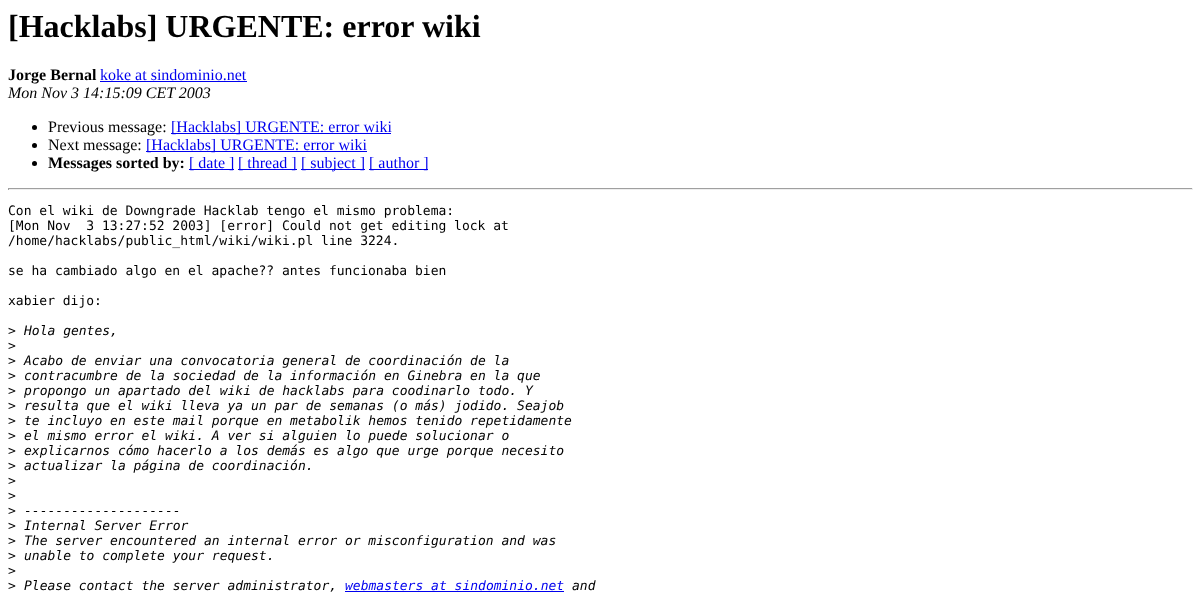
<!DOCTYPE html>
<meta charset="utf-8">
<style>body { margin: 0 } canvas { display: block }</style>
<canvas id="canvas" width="1201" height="594"></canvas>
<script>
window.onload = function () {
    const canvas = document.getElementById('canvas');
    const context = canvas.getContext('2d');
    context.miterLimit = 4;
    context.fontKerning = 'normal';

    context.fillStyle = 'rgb(255, 255, 255)';
    context.fillRect(0, 0, 1201, 594);
    context.fillStyle = 'rgb(0, 0, 238)';
    context.fillRect(100, 81, 147, 1);
    context.fillStyle = 'rgb(0, 0, 0)';
    context.beginPath();
    context.arc(34.5, 127.5, 2.5, 0, 2 * Math.PI);
    context.fill();
    context.fillStyle = 'rgb(0, 0, 238)';
    context.fillRect(171, 133, 220, 1);
    context.fillStyle = 'rgb(0, 0, 0)';
    context.beginPath();
    context.arc(34.5, 145.5, 2.5, 0, 2 * Math.PI);
    context.fill();
    context.fillStyle = 'rgb(0, 0, 238)';
    context.fillRect(146, 151, 221, 1);
    context.fillStyle = 'rgb(0, 0, 0)';
    context.beginPath();
    context.arc(34.5, 163.5, 2.5, 0, 2 * Math.PI);
    context.fill();
    context.fillStyle = 'rgb(0, 0, 238)';
    context.fillRect(189, 169, 45, 1);
    context.fillRect(238, 169, 59, 1);
    context.fillRect(301, 169, 64, 1);
    context.fillRect(369, 169, 59, 1);
    context.fillStyle = 'rgb(159, 159, 159)';
    context.fillRect(8, 188, 1185, 1);
    context.fillStyle = 'rgb(238, 238, 238)';
    context.fillRect(1192, 188, 1, 2);
    context.fillRect(8, 189, 1185, 1);
    context.fillStyle = 'rgb(159, 159, 159)';
    context.fillRect(8, 188, 1, 2);
    context.fillStyle = 'rgb(0, 0, 238)';
    context.fillRect(345, 591, 219, 1);
    context.font = 'bold 32px Liberation Serif';
    context.fillStyle = 'rgb(0, 0, 0)';
    context.fillText('[Hacklabs] URGENTE: error wiki', 8, 37);
    context.font = 'bold 16px Liberation Serif';
    context.fillText('Jorge Bernal', 8, 80);
    context.font = '16px Liberation Serif';
    context.fillStyle = 'rgb(0, 0, 238)';
    context.fillText('koke at sindominio.net', 100, 80);
    context.font = 'italic 16px Liberation Serif';
    context.fillStyle = 'rgb(0, 0, 0)';
    context.fillText('Mon Nov 3 14:15:09 CET 2003', 8, 98);
    context.font = '16px Liberation Serif';
    context.fillText('Previous message:', 48, 132);
    context.fillStyle = 'rgb(0, 0, 238)';
    context.fillText('[Hacklabs] URGENTE: error wiki', 171, 132);
    context.fillStyle = 'rgb(0, 0, 0)';
    context.fillText('Next message:', 48, 150);
    context.fillStyle = 'rgb(0, 0, 238)';
    context.fillText('[Hacklabs] URGENTE: error wiki', 146, 150);
    context.font = 'bold 16px Liberation Serif';
    context.fillStyle = 'rgb(0, 0, 0)';
    context.fillText('Messages sorted by:', 48, 168);
    context.font = '16px Liberation Serif';
    context.fillStyle = 'rgb(0, 0, 238)';
    context.fillText('[ date ]', 189, 168);
    context.fillText('[ thread ]', 238, 168);
    context.fillText('[ subject ]', 301, 168);
    context.fillText('[ author ]', 369, 168);
    context.font = '13px DejaVu Sans Mono';
    context.fillStyle = 'rgb(0, 0, 0)';
    context.fillText('Con el wiki de Downgrade Hacklab tengo el mismo problema:', 8, 215);
    context.fillText('[Mon Nov  3 13:27:52 2003] [error] Could not get editing lock at', 8, 230);
    context.fillText('/home/hacklabs/public_html/wiki/wiki.pl line 3224.', 8, 245);
    context.fillText('se ha cambiado algo en el apache?? antes funcionaba bien', 8, 275);
    context.fillText('xabier dijo:', 8, 305);
    context.fillText('>', 8, 335);
    context.font = 'italic 13px DejaVu Sans Mono';
    context.fillText('Hola gentes,', 24, 335);
    context.font = '13px DejaVu Sans Mono';
    context.fillText('>', 8, 350);
    context.fillText('>', 8, 365);
    context.font = 'italic 13px DejaVu Sans Mono';
    context.fillText('Acabo de enviar una convocatoria general de coordinación de la', 24, 365);
    context.font = '13px DejaVu Sans Mono';
    context.fillText('>', 8, 380);
    context.font = 'italic 13px DejaVu Sans Mono';
    context.fillText('contracumbre de la sociedad de la información en Ginebra en la que', 24, 380);
    context.font = '13px DejaVu Sans Mono';
    context.fillText('>', 8, 395);
    context.font = 'italic 13px DejaVu Sans Mono';
    context.fillText('propongo un apartado del wiki de hacklabs para coodinarlo todo. Y', 24, 395);
    context.font = '13px DejaVu Sans Mono';
    context.fillText('>', 8, 410);
    context.font = 'italic 13px DejaVu Sans Mono';
    context.fillText('resulta que el wiki lleva ya un par de semanas (o más) jodido. Seajob', 24, 410);
    context.font = '13px DejaVu Sans Mono';
    context.fillText('>', 8, 425);
    context.font = 'italic 13px DejaVu Sans Mono';
    context.fillText('te incluyo en este mail porque en metabolik hemos tenido repetidamente', 24, 425);
    context.font = '13px DejaVu Sans Mono';
    context.fillText('>', 8, 440);
    context.font = 'italic 13px DejaVu Sans Mono';
    context.fillText('el mismo error el wiki. A ver si alguien lo puede solucionar o', 24, 440);
    context.font = '13px DejaVu Sans Mono';
    context.fillText('>', 8, 455);
    context.font = 'italic 13px DejaVu Sans Mono';
    context.fillText('explicarnos cómo hacerlo a los demás es algo que urge porque necesito', 24, 455);
    context.font = '13px DejaVu Sans Mono';
    context.fillText('>', 8, 470);
    context.font = 'italic 13px DejaVu Sans Mono';
    context.fillText('actualizar la página de coordinación.', 24, 470);
    context.font = '13px DejaVu Sans Mono';
    context.fillText('>', 8, 485);
    context.fillText('>', 8, 500);
    context.fillText('>', 8, 515);
    context.font = 'italic 13px DejaVu Sans Mono';
    context.fillText('--------------------', 24, 515);
    context.font = '13px DejaVu Sans Mono';
    context.fillText('>', 8, 530);
    context.font = 'italic 13px DejaVu Sans Mono';
    context.fillText('Internal Server Error', 24, 530);
    context.font = '13px DejaVu Sans Mono';
    context.fillText('>', 8, 545);
    context.font = 'italic 13px DejaVu Sans Mono';
    context.fillText('The server encountered an internal error or misconfiguration and was', 24, 545);
    context.font = '13px DejaVu Sans Mono';
    context.fillText('>', 8, 560);
    context.font = 'italic 13px DejaVu Sans Mono';
    context.fillText('unable to complete your request.', 24, 560);
    context.font = '13px DejaVu Sans Mono';
    context.fillText('>', 8, 575);
    context.fillText('>', 8, 590);
    context.font = 'italic 13px DejaVu Sans Mono';
    context.fillText('Please contact the server administrator,', 24, 590);
    context.fillStyle = 'rgb(0, 0, 238)';
    context.fillText('webmasters at sindominio.net', 345, 590);
    context.fillStyle = 'rgb(0, 0, 0)';
    context.fillText('and', 572, 590);
};
</script>
